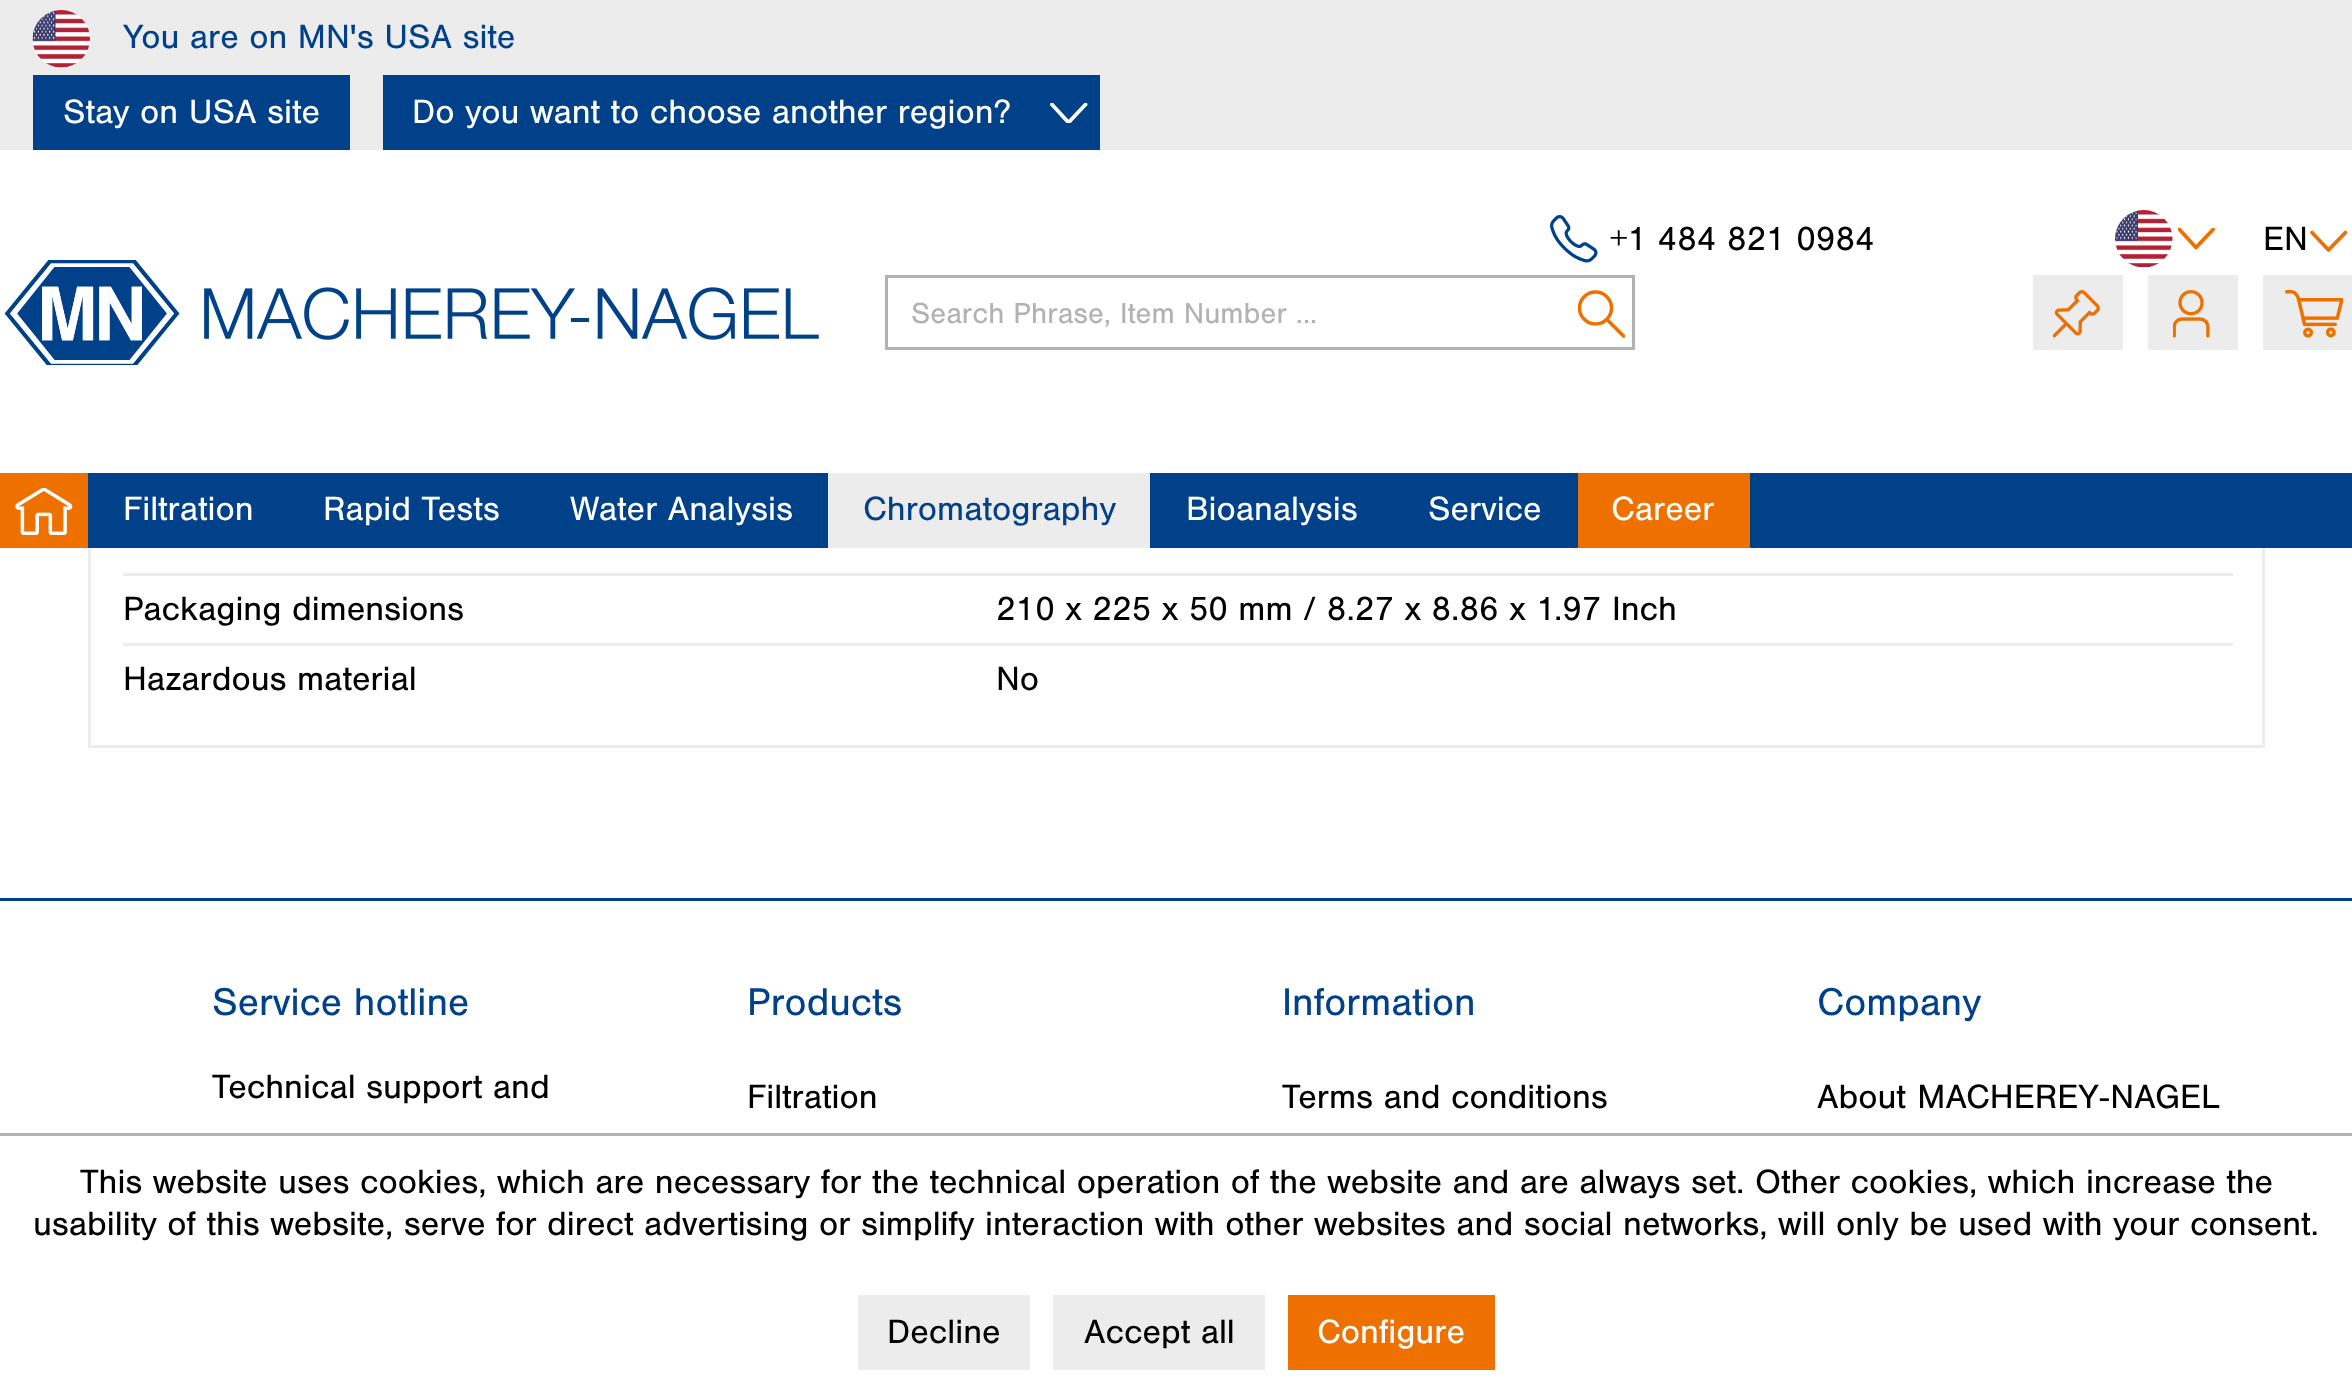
<!DOCTYPE html>
<meta charset="utf-8">
<style>body { margin: 0 } canvas { display: block }</style>
<canvas id="canvas" width="2352" height="1394"></canvas>
<img id="img1" src="images/1.png" hidden>
<img id="img2" src="images/2.png" hidden>
<img id="img3" src="images/3.png" hidden>
<img id="img4" src="images/4.png" hidden>
<img id="img5" src="images/5.png" hidden>
<img id="img6" src="images/6.png" hidden>
<img id="img7" src="images/7.png" hidden>
<img id="img8" src="images/8.png" hidden>
<script>
window.onload = function () {
    const canvas = document.getElementById('canvas');
    const context = canvas.getContext('2d');
    context.miterLimit = 4;
    context.fontKerning = 'normal';

    context.fillStyle = 'rgb(255, 255, 255)';
    context.fillRect(0, 0, 2352, 1394);
    context.strokeStyle = 'rgb(236, 236, 237)';
    context.lineWidth = 3;
    context.strokeRect(89.5, -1.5, 2174, 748);
    context.fillRect(88, 150, 2177, 323);
    context.fillStyle = 'rgb(236, 236, 237)';
    context.fillRect(0, 0, 2352, 150);
    context.drawImage(document.getElementById('img1'), 32, 10, 58, 58);
    context.fillStyle = 'rgb(0, 65, 137)';
    context.fillRect(33, 75, 317, 75);
    context.fillRect(383, 75, 717, 75);
    context.save();
    context.beginPath();
    context.rect(1050, 103, 38, 20);
    context.clip();
    context.beginPath();
    context.moveTo(1085.5, 104.5);
    context.lineTo(1068.5, 122.5);
    context.lineTo(1052, 104.5);
    context.strokeStyle = 'rgb(255, 255, 255)';
    context.lineWidth = 3.8;
    context.lineCap = 'round';
    context.lineJoin = 'round';
    context.stroke();
    context.restore();
    context.drawImage(document.getElementById('img2'), 1550, 215, 48, 48);
    context.drawImage(document.getElementById('img3'), 2115, 210, 58, 57);
    context.save();
    context.beginPath();
    context.rect(2178, 228, 37, 22);
    context.clip();
    context.beginPath();
    context.moveTo(2213, 229.5);
    context.lineTo(2196, 247.5);
    context.lineTo(2179.5, 229.5);
    context.strokeStyle = 'rgb(238, 113, 0)';
    context.lineWidth = 3.8;
    context.lineCap = 'round';
    context.lineJoin = 'round';
    context.stroke();
    context.restore();
    context.beginPath();
    context.moveTo(2345.5, 232.5);
    context.lineTo(2328.5, 250);
    context.lineTo(2312, 232.5);
    context.strokeStyle = 'rgb(238, 113, 0)';
    context.lineWidth = 3.8;
    context.lineCap = 'round';
    context.lineJoin = 'round';
    context.stroke();
    context.drawImage(document.getElementById('img4'), 4, 260, 815, 105);
    context.strokeStyle = 'rgb(177, 178, 179)';
    context.lineWidth = 3;
    context.lineJoin = 'miter';
    context.strokeRect(886.5, 276.5, 747, 72);
    context.save();
    context.beginPath();
    context.rect(1578, 290, 47, 48);
    context.clip();
    context.beginPath();
    context.arc(1595.5, 308, 16, 0, 2 * Math.PI);
    context.strokeStyle = 'rgb(238, 113, 0)';
    context.lineWidth = 3.5;
    context.stroke();
    context.restore();
    context.beginPath();
    context.moveTo(1608, 320.5);
    context.lineTo(1623.5, 336);
    context.strokeStyle = 'rgb(238, 113, 0)';
    context.lineWidth = 3.5;
    context.stroke();
    context.fillStyle = 'rgb(236, 236, 237)';
    context.fillRect(2033, 275, 90, 75);
    context.drawImage(document.getElementById('img5'), 2053, 290, 47, 48);
    context.fillRect(2148, 275, 90, 75);
    context.drawImage(document.getElementById('img6'), 2173, 290, 37, 48);
    context.fillRect(2263, 275, 89, 75);
    context.drawImage(document.getElementById('img7'), 2285, 290, 58, 48);
    context.fillStyle = 'rgb(0, 65, 137)';
    context.fillRect(88, 473, 2264, 75);
    context.fillStyle = 'rgb(238, 113, 0)';
    context.fillRect(0, 473, 88, 75);
    context.drawImage(document.getElementById('img8'), 15, 488, 58, 47);
    context.fillStyle = 'rgb(236, 236, 237)';
    context.fillRect(828, 473, 322, 75);
    context.fillStyle = 'rgb(238, 113, 0)';
    context.fillRect(1578, 473, 172, 75);
    context.fillStyle = 'rgb(236, 236, 237)';
    context.fillRect(123, 573, 2110, 3);
    context.fillRect(123, 643, 2110, 3);
    context.fillStyle = 'rgb(0, 65, 137)';
    context.fillRect(0, 898, 2352, 3);
    context.fillStyle = 'rgb(177, 178, 179)';
    context.fillRect(0, 1133, 2352, 3);
    context.fillStyle = 'rgb(236, 236, 237)';
    context.fillRect(858, 1295, 172, 75);
    context.fillRect(1053, 1295, 212, 75);
    context.fillStyle = 'rgb(238, 113, 0)';
    context.fillRect(1288, 1295, 207, 75);
    context.font = '35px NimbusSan';
    context.fillStyle = 'rgb(0, 65, 137)';
    context.fillText('You are on MN\'s USA site', 123, 48);
    context.fillStyle = 'rgb(255, 255, 255)';
    context.fillText('Stay on USA site', 63, 123);
    context.fillText('Do you want to choose another region?', 412, 123);
    context.fillStyle = 'rgb(0, 0, 0)';
    context.fillText('+1 484 821 0984', 1610, 250);
    context.fillText('EN', 2263, 250);
    context.font = '30px NimbusSan';
    context.fillStyle = 'rgb(177, 178, 179)';
    context.fillText('Search Phrase, Item Number ...', 911, 323);
    context.font = '35px NimbusSan';
    context.fillStyle = 'rgb(255, 255, 255)';
    context.fillText('Filtration', 123, 520);
    context.fillText('Rapid Tests', 323, 520);
    context.fillText('Water Analysis', 570, 520);
    context.fillStyle = 'rgb(0, 65, 137)';
    context.fillText('Chromatography', 863, 520);
    context.fillStyle = 'rgb(255, 255, 255)';
    context.fillText('Bioanalysis', 1186, 520);
    context.fillText('Service', 1428, 520);
    context.fillText('Career', 1611, 520);
    context.fillStyle = 'rgb(0, 0, 0)';
    context.fillText('Packaging dimensions', 123, 620);
    context.fillText('210 x 225 x 50 mm / 8.27 x 8.86 x 1.97 Inch', 996, 620);
    context.fillText('Hazardous material', 123, 690);
    context.fillText('No', 996, 690);
    context.font = '40px NimbusSan';
    context.fillStyle = 'rgb(0, 65, 137)';
    context.fillText('Service hotline', 212, 1015);
    context.font = '35px NimbusSan';
    context.fillStyle = 'rgb(0, 0, 0)';
    context.fillText('Technical support and', 212, 1098);
    context.font = '40px NimbusSan';
    context.fillStyle = 'rgb(0, 65, 137)';
    context.fillText('Products', 747, 1015);
    context.font = '35px NimbusSan';
    context.fillStyle = 'rgb(0, 0, 0)';
    context.fillText('Filtration', 747, 1108);
    context.font = '40px NimbusSan';
    context.fillStyle = 'rgb(0, 65, 137)';
    context.fillText('Information', 1282, 1015);
    context.font = '35px NimbusSan';
    context.fillStyle = 'rgb(0, 0, 0)';
    context.fillText('Terms and conditions', 1282, 1108);
    context.font = '40px NimbusSan';
    context.fillStyle = 'rgb(0, 65, 137)';
    context.fillText('Company', 1817, 1015);
    context.wordSpacing = '1px';
    context.font = '35px NimbusSan';
    context.fillStyle = 'rgb(0, 0, 0)';
    context.fillText('About MACHEREY‑NAGEL', 1817, 1108);
    context.wordSpacing = '0px';
    context.fillText('This website uses cookies, which are necessary for the technical operation of the website and are always set. Other cookies, which increase the', 80, 1193);
    context.fillText('usability of this website, serve for direct advertising or simplify interaction with other websites and social networks, will only be used with your consent.', 33, 1235);
    context.fillText('Decline', 887, 1343);
    context.fillText('Accept all', 1084, 1343);
    context.fillStyle = 'rgb(255, 255, 255)';
    context.fillText('Configure', 1317, 1343);
};
</script>
